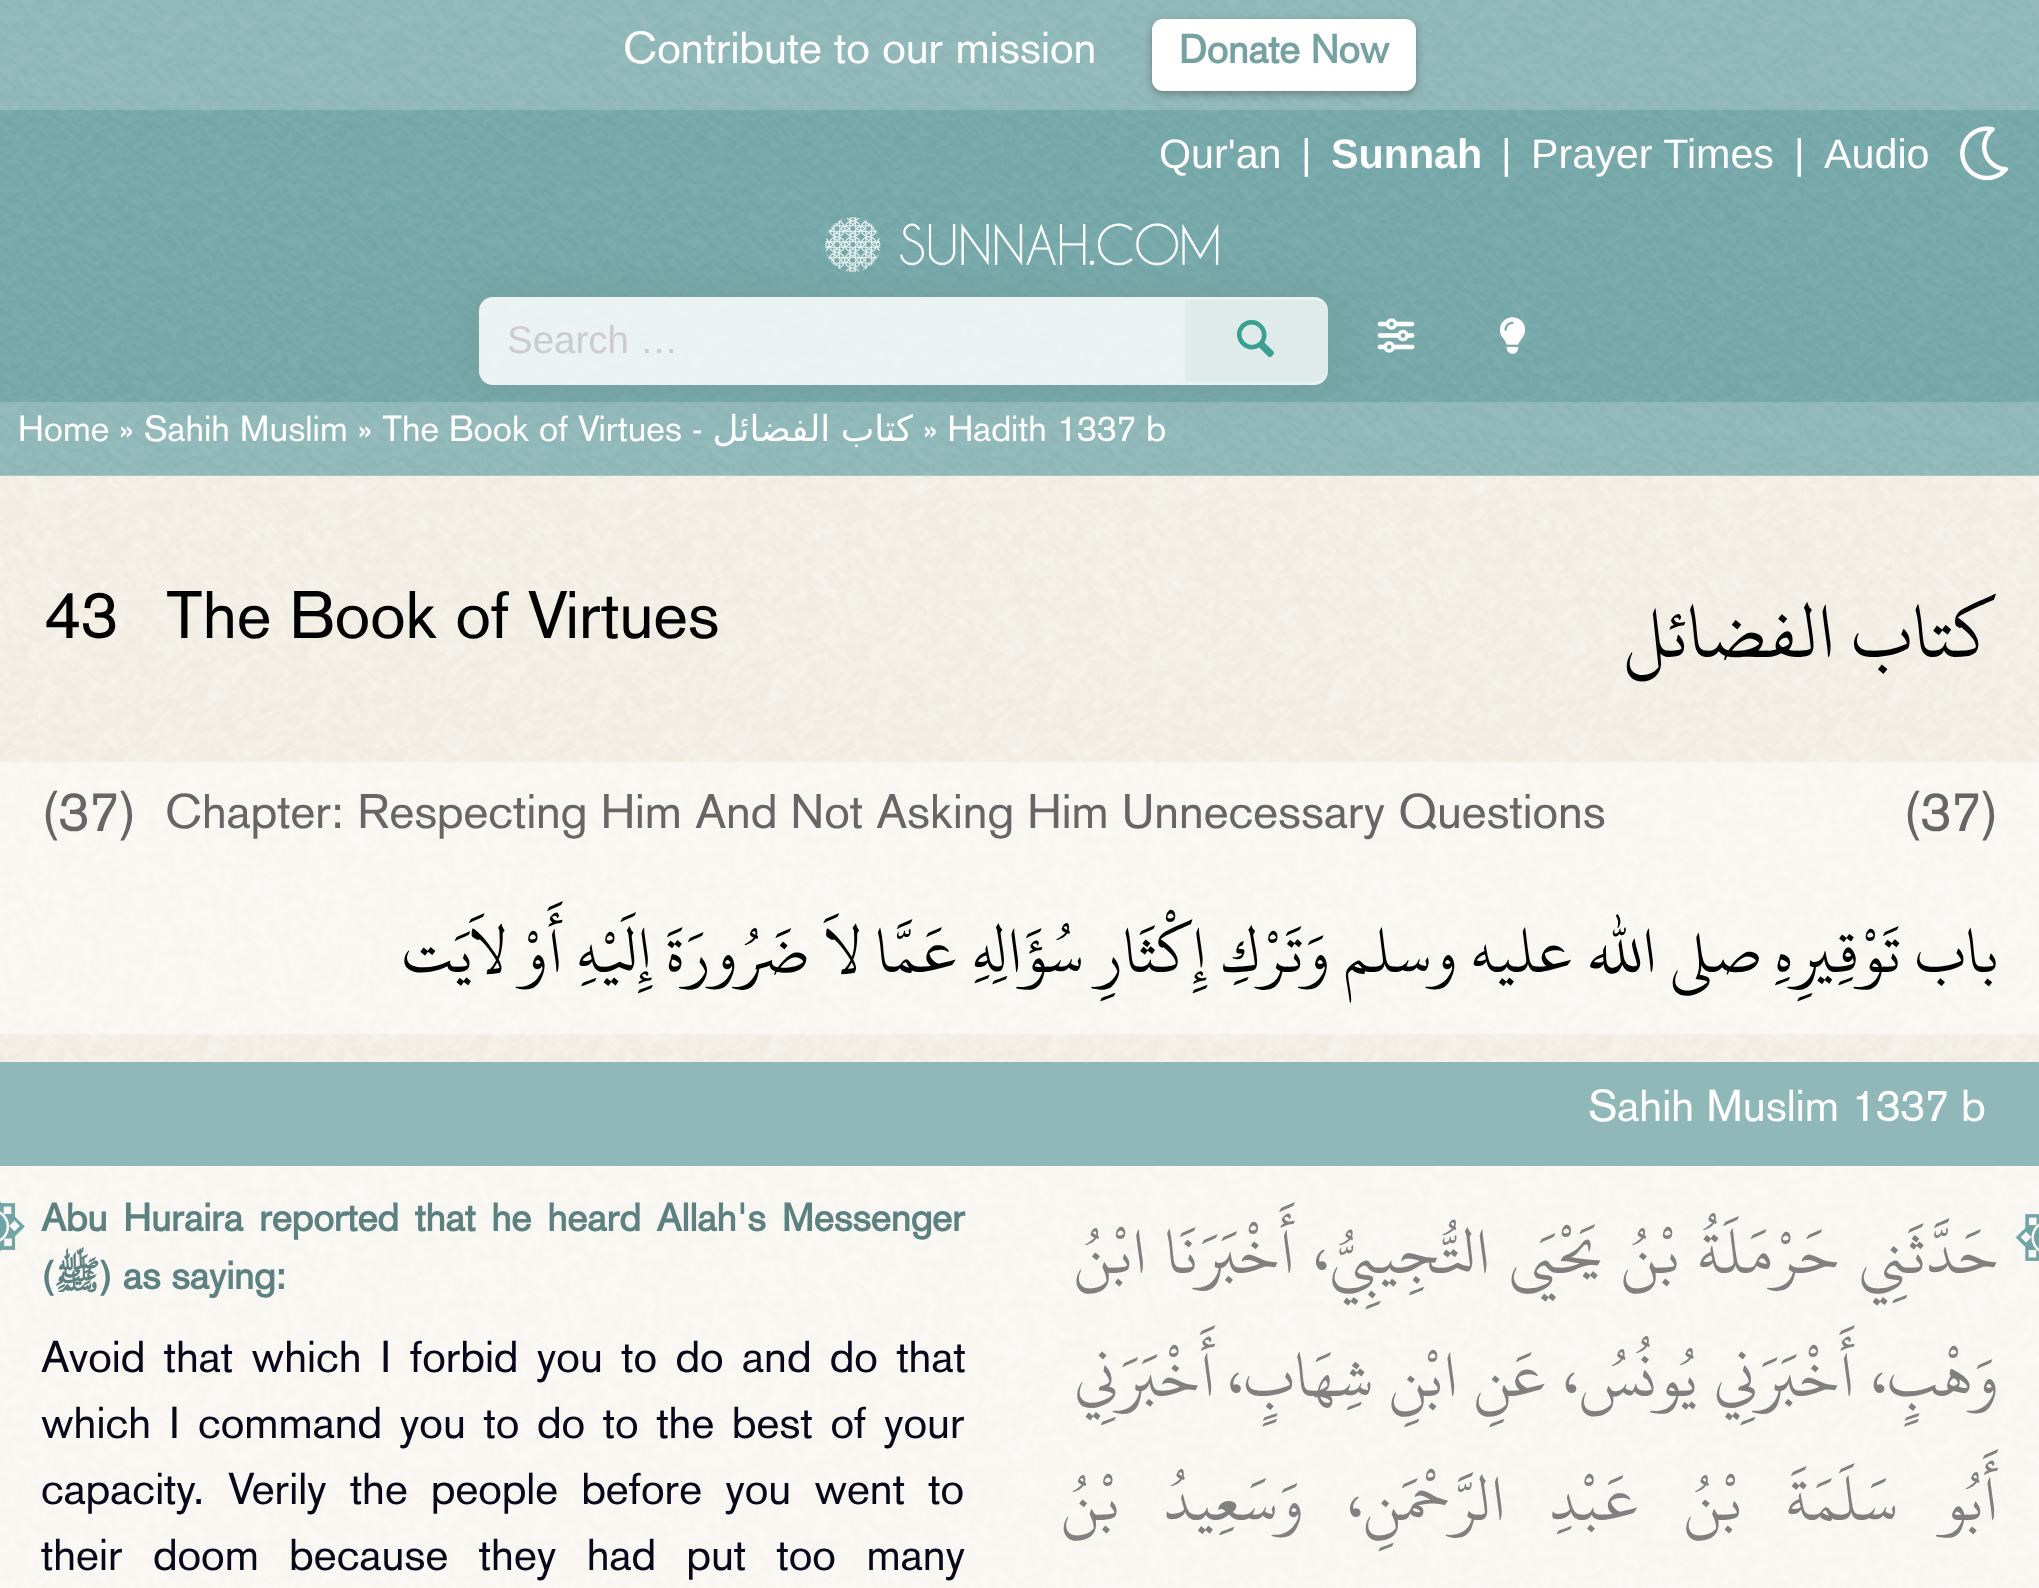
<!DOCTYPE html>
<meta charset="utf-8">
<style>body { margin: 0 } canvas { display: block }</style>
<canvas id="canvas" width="2039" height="1588"></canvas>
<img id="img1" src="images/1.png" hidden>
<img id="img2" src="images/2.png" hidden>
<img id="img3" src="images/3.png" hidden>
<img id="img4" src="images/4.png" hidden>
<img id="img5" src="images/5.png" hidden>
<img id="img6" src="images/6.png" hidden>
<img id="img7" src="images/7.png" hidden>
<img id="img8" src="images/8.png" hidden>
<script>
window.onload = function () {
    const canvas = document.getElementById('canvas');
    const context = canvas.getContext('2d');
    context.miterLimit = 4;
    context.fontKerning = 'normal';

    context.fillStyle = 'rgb(255, 255, 255)';
    context.fillRect(0, 0, 2039, 1588);
    context.drawImage(document.getElementById('img1'), 0, 475, 2039, 1113);
    context.drawImage(document.getElementById('img2'), 0, 0, 2039, 476);
    context.fillStyle = 'rgba(251, 250, 248, 0.2)';
    context.fillRect(0, 0, 2039, 110);
    context.fillStyle = 'rgba(0, 0, 0, 0.3)';
    context.filter = 'blur(4px)';
    context.beginPath();
    context.roundRect(1152, 22, 264, 72, 11);
    context.fill();
    context.filter = 'none';
    context.fillStyle = 'rgb(255, 255, 255)';
    context.beginPath();
    context.roundRect(1152, 19, 264, 72, 11);
    context.fill();
    context.drawImage(document.getElementById('img3'), 1960, 126, 48, 55);
    context.drawImage(document.getElementById('img4'), 825, 217, 394, 56);
    context.drawImage(document.getElementById('img5'), 1377, 318, 38, 35);
    context.save();
    context.beginPath();
    context.moveTo(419, 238);
    context.lineTo(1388, 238);
    context.lineTo(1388, 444);
    context.lineTo(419, 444);
    context.closePath();
    context.moveTo(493, 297);
    context.lineTo(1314, 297);
    context.bezierCurveTo(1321.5, 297, 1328, 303.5, 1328, 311);
    context.lineTo(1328, 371);
    context.bezierCurveTo(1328, 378.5, 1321.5, 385, 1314, 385);
    context.lineTo(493, 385);
    context.bezierCurveTo(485.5, 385, 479, 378.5, 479, 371);
    context.lineTo(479, 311);
    context.bezierCurveTo(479, 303.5, 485.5, 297, 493, 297);
    context.closePath();
    context.clip('evenodd');
    context.fillStyle = 'rgb(117, 161, 161)';
    context.filter = 'blur(16.5px)';
    context.beginPath();
    context.roundRect(470, 289, 867, 104, 22);
    context.fill();
    context.filter = 'none';
    context.restore();
    context.fillStyle = 'rgba(255, 255, 255, 0.85)';
    context.beginPath();
    context.roundRect(479, 297, 849, 88, 14);
    context.fill();
    context.fillStyle = 'rgb(222, 235, 234)';
    context.beginPath();
    context.roundRect(1185, 300, 143, 82, [0, 14, 14, 0]);
    context.fill();
    context.drawImage(document.getElementById('img6'), 1499, 317, 27, 37);
    context.fillStyle = 'rgba(251, 250, 248, 0.2)';
    context.fillRect(0, 402, 2039, 74);
    context.fillStyle = 'rgba(255, 255, 255, 0.5)';
    context.fillRect(0, 762, 2039, 272);
    context.fillRect(0, 1166, 2039, 422);
    context.fillStyle = 'rgb(144, 184, 185)';
    context.fillRect(0, 1062, 2039, 104);
    context.drawImage(document.getElementById('img7'), 0, 1201, 25, 51);
    context.drawImage(document.getElementById('img8'), 2015, 1214, 24, 47);
    context.font = '44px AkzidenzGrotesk';
    context.fillStyle = 'rgb(255, 255, 255)';
    context.fillText('Contribute to our mission', 623, 63);
    context.font = 'bold 39.5px AkzidenzGrotesk';
    context.fillStyle = 'rgb(117, 161, 161)';
    context.fillText('Donate Now', 1179, 63);
    context.font = '41.25px Liberation Sans';
    context.fillStyle = 'rgb(255, 255, 255)';
    context.fillText('Qur\'an', 1159, 168);
    context.fillText('|', 1301, 168);
    context.font = 'bold 41.25px Liberation Sans';
    context.fillText('Sunnah', 1331, 168);
    context.font = '41.25px Liberation Sans';
    context.fillText('|', 1501, 168);
    context.fillText('Prayer Times', 1531, 168);
    context.fillText('|', 1794, 168);
    context.fillText('Audio', 1824, 168);
    context.font = '38.5px Liberation Sans';
    context.fillStyle = 'rgb(204, 204, 204)';
    context.fillText('Search …', 507, 353);
    context.font = '47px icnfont';
    context.fillStyle = 'rgb(59, 160, 143)';
    context.fillText('l', 1237, 355);
    context.font = '35.75px AkzidenzGrotesk';
    context.fillStyle = 'rgb(255, 255, 255)';
    context.fillText('Home » Sahih Muslim » The Book of Virtues -', 18, 441);
    context.wordSpacing = '-1px';
    context.direction = 'rtl';
    context.font = '35.75px DejaVu Sans';
    context.fillText('كتاب الفضائل', 913, 441);
    context.wordSpacing = '0px';
    context.direction = 'ltr';
    context.font = '35.75px AkzidenzGrotesk';
    context.fillText('» Hadith 1337 b', 923, 441);
    context.font = '66px AkzidenzGrotesk';
    context.fillStyle = 'rgb(0, 0, 0)';
    context.fillText('43', 44, 638);
    context.fillText('The Book of Virtues', 166, 638);
    context.direction = 'rtl';
    context.font = '82.5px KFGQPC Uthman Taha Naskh';
    context.fillText('كتاب الفضائل', 1996, 657);
    context.direction = 'ltr';
    context.font = '55px AkzidenzGrotesk';
    context.fillStyle = 'rgb(102, 102, 102)';
    context.fillText('(37)', 41, 831);
    context.font = '47.7px AkzidenzGrotesk';
    context.fillText('Chapter: Respecting Him And Not Asking Him Unnecessary Questions', 165, 828);
    context.font = '55px AkzidenzGrotesk';
    context.fillText('(37)', 1903, 831);
    context.direction = 'rtl';
    context.font = '68.75px KFGQPC Uthman Taha Naskh';
    context.fillStyle = 'rgb(0, 0, 0)';
    context.fillText('يَت', 473, 972);
    context.fillText('باب تَوْقِيرِهِ صلى الله عليه وسلم وَتَرْكِ إِكْثَارِ سُؤَالِهِ عَمَّا لاَ ضَرُورَةَ إِلَيْهِ أَوْ لاَ', 1999, 972);
    context.direction = 'ltr';
    context.font = '44px AkzidenzGrotesk';
    context.fillStyle = 'rgb(255, 255, 255)';
    context.fillText('Sahih Muslim 1337 b', 1588, 1121);
    context.wordSpacing = '5.25px';
    context.font = 'bold 38.5px AkzidenzGrotesk';
    context.fillStyle = 'rgb(93, 128, 128)';
    context.fillText('Abu Huraira reported that he heard Allah\'s Messenger', 41, 1231);
    context.wordSpacing = '0px';
    context.fillText('(', 41, 1289);
    context.direction = 'rtl';
    context.font = 'bold 38.5px Lateef';
    context.fillText('ﷺ', 100, 1289);
    context.direction = 'ltr';
    context.font = 'bold 38.5px AkzidenzGrotesk';
    context.fillText(') as saying:', 100, 1289);
    context.wordSpacing = '6.25px';
    context.font = '44px AkzidenzGrotesk';
    context.fillStyle = 'rgb(8, 8, 26)';
    context.fillText('Avoid that which I forbid you to do and do that', 41, 1372);
    context.wordSpacing = '5.5px';
    context.fillText('which I command you to do to the best of your', 41, 1438);
    context.wordSpacing = '11px';
    context.fillText('capacity. Verily the people before you went to', 41, 1504);
    context.wordSpacing = '18.25px';
    context.fillText('their doom because they had put too many', 41, 1570);
    context.wordSpacing = '5px';
    context.direction = 'rtl';
    context.font = '68.75px KFGQPC Uthman Taha Naskh';
    context.fillStyle = 'rgb(128, 128, 128)';
    context.fillText('حَدَّثَنِي حَرْمَلَةُ بْنُ يَحْيَى التُّجِيبِيُّ، أَخْبَرَنَا ابْنُ', 1999, 1273);
    context.wordSpacing = '0px';
    context.fillText('أَخْبَرَنِي', 1216, 1396);
    context.wordSpacing = '2.75px';
    context.fillText('وَهْبٍ، أَخْبَرَنِي يُونُسُ، عَنِ ابْنِ شِهَابٍ،', 1999, 1396);
    context.wordSpacing = '30.5px';
    context.fillText('أَبُو سَلَمَةَ بْنُ عَبْدِ الرَّحْمَنِ، وَسَعِيدُ بْنُ', 1999, 1520);
};
</script>
